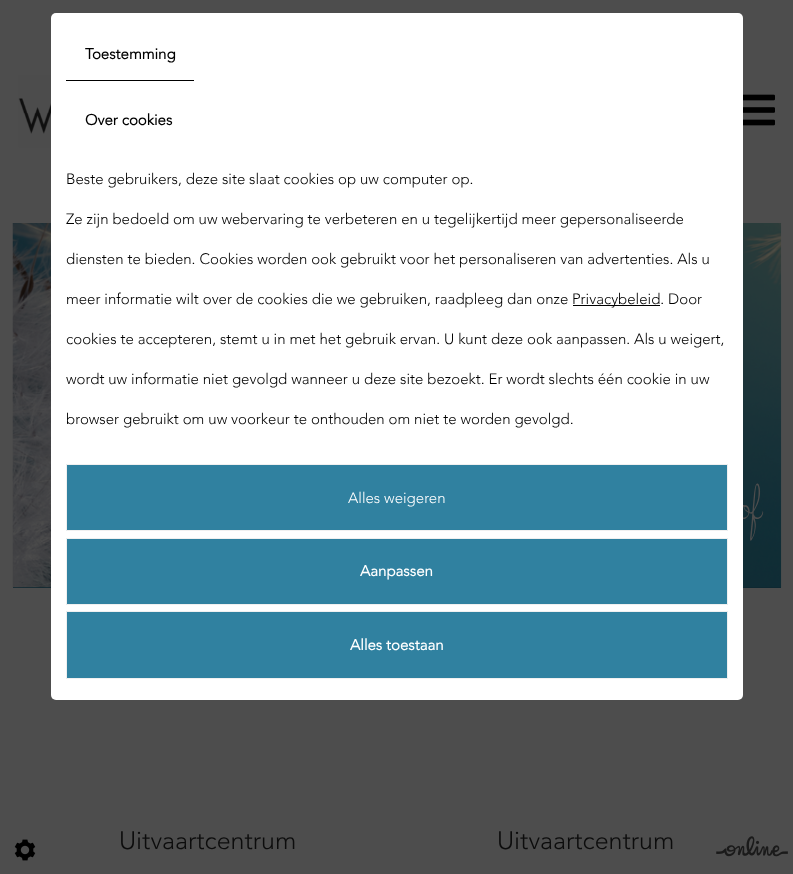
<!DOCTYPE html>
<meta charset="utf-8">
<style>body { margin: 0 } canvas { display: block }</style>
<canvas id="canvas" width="793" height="874"></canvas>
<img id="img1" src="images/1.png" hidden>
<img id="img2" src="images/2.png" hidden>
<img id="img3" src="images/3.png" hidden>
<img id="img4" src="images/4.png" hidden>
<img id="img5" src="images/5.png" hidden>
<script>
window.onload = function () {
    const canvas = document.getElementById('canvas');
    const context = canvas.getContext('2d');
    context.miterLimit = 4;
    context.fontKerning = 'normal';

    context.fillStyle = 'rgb(77, 77, 77)';
    context.fillRect(0, 0, 793, 874);
    context.drawImage(document.getElementById('img1'), 18, 75, 33, 73);
    context.drawImage(document.getElementById('img2'), 743, 94, 32, 32);
    context.fillStyle = 'rgb(14, 39, 48)';
    context.fillRect(13, 587, 768, 1);
    context.drawImage(document.getElementById('img3'), 12, 223, 770, 365);
    context.drawImage(document.getElementById('img4'), 14, 839, 22, 22);
    context.drawImage(document.getElementById('img5'), 716, 836, 72, 21);
    context.font = '28px "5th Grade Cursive"';
    context.fillStyle = 'rgb(77, 77, 77)';
    context.fillText('of', 738, 519);
    context.fillStyle = 'rgb(255, 255, 255)';
    context.beginPath();
    context.roundRect(51, 13, 692, 687, 5);
    context.fill();
    context.fillStyle = 'rgb(48, 129, 160)';
    context.beginPath();
    context.rect(66.5, 611.5, 661, 67);
    context.fill();
    context.strokeStyle = 'rgb(240, 240, 240)';
    context.stroke();
    context.font = 'bold 15px Avenir';
    context.fillStyle = 'rgb(255, 255, 255)';
    context.fillText('Alles toestaan', 350, 650);
    context.fillStyle = 'rgb(48, 129, 160)';
    context.beginPath();
    context.rect(66.5, 538.5, 661, 66);
    context.fill();
    context.stroke();
    context.fillStyle = 'rgb(255, 255, 255)';
    context.fillText('Aanpassen', 360, 576);
    context.fillStyle = 'rgb(48, 129, 160)';
    context.beginPath();
    context.rect(66.5, 464.5, 661, 66);
    context.fill();
    context.stroke();
    context.font = '300 15px Avenir';
    context.fillStyle = 'rgb(255, 255, 255)';
    context.fillText('Alles weigeren', 348, 503);
    context.fillStyle = 'rgb(0, 0, 0)';
    context.fillText('browser gebruikt om uw voorkeur te onthouden om niet te worden gevolgd.', 66, 424);
    context.fillText('wordt uw informatie niet gevolgd wanneer u deze site bezoekt. Er wordt slechts één cookie in uw', 66, 384);
    context.fillText('cookies te accepteren, stemt u in met het gebruik ervan. U kunt deze ook aanpassen. Als u weigert,', 66, 344);
    context.fillRect(573, 305, 87, 1);
    context.fillText('Privacybeleid. Door', 572, 304);
    context.fillText('meer informatie wilt over de cookies die we gebruiken, raadpleeg dan onze', 66, 304);
    context.fillText('diensten te bieden. Cookies worden ook gebruikt voor het personaliseren van advertenties. Als u', 66, 264);
    context.fillText('Ze zijn bedoeld om uw webervaring te verbeteren en u tegelijkertijd meer gepersonaliseerde', 66, 224);
    context.fillText('Beste gebruikers, deze site slaat cookies op uw computer op.', 66, 184);
    context.font = 'bold 15px Avenir';
    context.fillText('Over cookies', 85, 125);
    context.fillText('Toestemming', 85, 59);
    context.fillRect(66, 80, 128, 1);
    context.font = '300 25px Avenir';
    context.fillStyle = 'rgb(12, 12, 12)';
    context.fillText('Uitvaartcentrum', 119, 849);
    context.fillText('Uitvaartcentrum', 497, 849);
};
</script>
